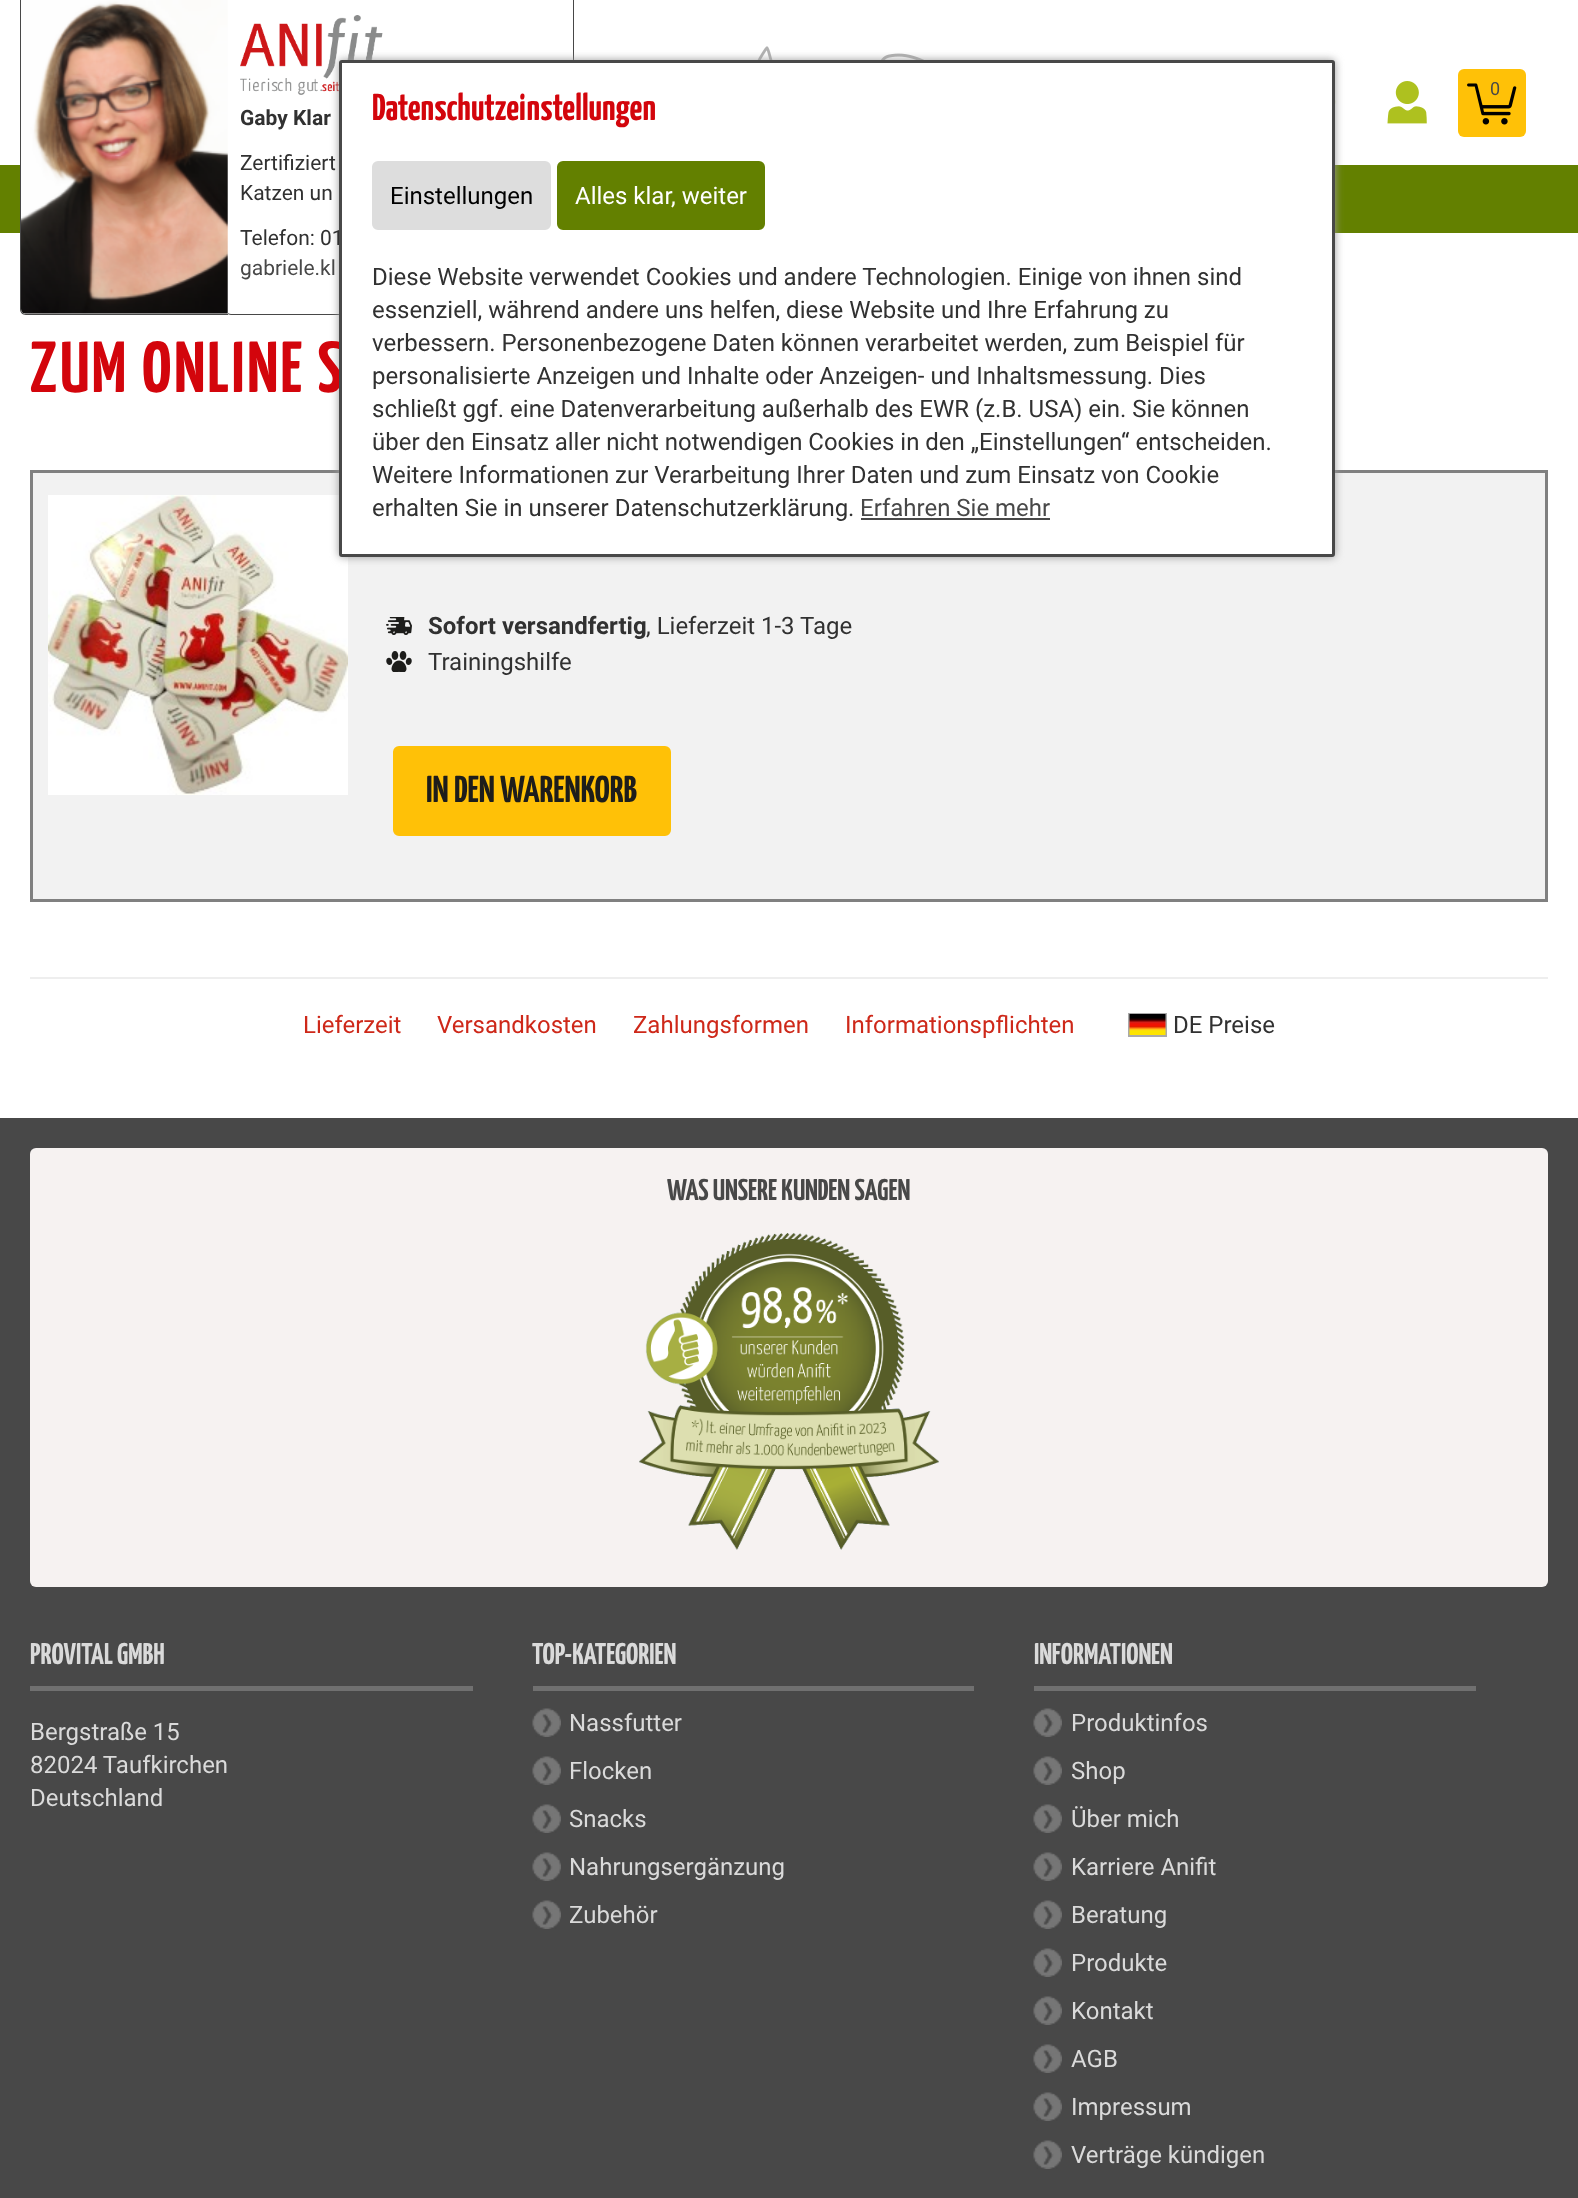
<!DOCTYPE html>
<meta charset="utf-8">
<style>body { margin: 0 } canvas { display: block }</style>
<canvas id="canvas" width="1578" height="2198"></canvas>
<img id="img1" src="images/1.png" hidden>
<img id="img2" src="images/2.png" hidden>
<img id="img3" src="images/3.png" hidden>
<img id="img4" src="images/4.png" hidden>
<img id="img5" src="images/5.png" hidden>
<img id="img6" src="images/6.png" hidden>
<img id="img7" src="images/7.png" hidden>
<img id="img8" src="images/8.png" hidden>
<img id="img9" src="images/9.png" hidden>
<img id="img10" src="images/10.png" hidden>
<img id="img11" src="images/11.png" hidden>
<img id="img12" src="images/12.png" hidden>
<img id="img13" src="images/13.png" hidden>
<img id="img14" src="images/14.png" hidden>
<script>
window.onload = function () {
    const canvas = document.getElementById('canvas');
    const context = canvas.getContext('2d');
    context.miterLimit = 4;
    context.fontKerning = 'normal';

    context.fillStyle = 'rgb(255, 255, 255)';
    context.fillRect(0, 0, 1578, 2198);
    context.drawImage(document.getElementById('img1'), 757, 46, 16, 14);
    context.drawImage(document.getElementById('img2'), 881, 53, 43, 7);
    context.drawImage(document.getElementById('img3'), 1387, 81, 40, 43);
    context.fillStyle = 'rgb(255, 193, 7)';
    context.beginPath();
    context.roundRect(1458, 69, 68, 68, 6);
    context.fill();
    context.drawImage(document.getElementById('img4'), 1467, 83, 50, 42);
    context.drawImage(document.getElementById('img5'), 1335, 100, 1, 4);
    context.fillStyle = 'rgb(99, 128, 0)';
    context.fillRect(0, 165, 1578, 68);
    context.fillStyle = 'rgb(255, 255, 255)';
    context.beginPath();
    context.roundRect(225, 0, 350, 315, [0, 0, 6, 6]);
    context.fill();
    context.fillStyle = 'rgb(72, 72, 72)';
    context.beginPath();
    context.moveTo(225, 0);
    context.lineTo(574, 0);
    context.lineTo(574, 309);
    context.bezierCurveTo(574, 312, 572, 315, 568, 315);
    context.lineTo(231, 315);
    context.bezierCurveTo(228, 315, 225, 312, 225, 309);
    context.closePath();
    context.moveTo(225, 0);
    context.lineTo(573, 0);
    context.lineTo(573, 309);
    context.bezierCurveTo(573, 311, 571, 314, 568, 314);
    context.lineTo(231, 314);
    context.bezierCurveTo(228, 314, 225, 311, 225, 309);
    context.closePath();
    context.fill('evenodd');
    context.beginPath();
    context.moveTo(20, 0);
    context.lineTo(228, 0);
    context.lineTo(228, 315);
    context.lineTo(26, 315);
    context.bezierCurveTo(22, 315, 20, 312, 20, 309);
    context.closePath();
    context.moveTo(21, 0);
    context.lineTo(228, 0);
    context.lineTo(228, 314);
    context.lineTo(26, 314);
    context.bezierCurveTo(23, 314, 21, 311, 21, 309);
    context.closePath();
    context.fill('evenodd');
    context.fillStyle = 'rgb(255, 255, 255)';
    context.beginPath();
    context.roundRect(21, 0, 207, 314, [0, 0, 0, 5]);
    context.fill();
    context.drawImage(document.getElementById('img6'), 21, 0, 207, 314);
    context.drawImage(document.getElementById('img7'), 240, 15, 143, 80);
    context.fillStyle = 'rgb(242, 242, 242)';
    context.beginPath();
    context.rect(31.5, 471.5, 1515, 429);
    context.fill();
    context.strokeStyle = 'rgb(128, 128, 128)';
    context.lineWidth = 3;
    context.stroke();
    context.drawImage(document.getElementById('img8'), 48, 495, 300, 300);
    context.drawImage(document.getElementById('img9'), 386, 617, 26, 18);
    context.drawImage(document.getElementById('img10'), 386, 651, 26, 21);
    context.fillStyle = 'rgb(255, 193, 7)';
    context.beginPath();
    context.roundRect(394.5, 747.5, 275, 87, 4.5);
    context.fill();
    context.strokeStyle = 'rgb(255, 193, 7)';
    context.stroke();
    context.fillStyle = 'rgb(238, 238, 238)';
    context.fillRect(30, 977, 1518, 2);
    context.strokeStyle = 'rgb(170, 170, 170)';
    context.lineWidth = 2;
    context.strokeRect(1129, 1014, 37, 22);
    context.drawImage(document.getElementById('img11'), 1129, 1014, 37, 21);
    context.fillStyle = 'rgb(153, 153, 153)';
    context.filter = 'blur(4px)';
    context.beginPath();
    context.roundRect(339, 60, 996, 497, 3);
    context.fill();
    context.filter = 'none';
    context.fillStyle = 'rgb(72, 72, 72)';
    context.fillRect(0, 1118, 1578, 1080);
    context.fillStyle = 'rgb(246, 242, 241)';
    context.beginPath();
    context.roundRect(30, 1148, 1518, 439, 6);
    context.fill();
    context.drawImage(document.getElementById('img12'), 639, 1233, 300, 317);
    context.fillStyle = 'rgb(112, 112, 112)';
    context.fillRect(30, 1686, 443, 5);
    context.fillRect(533, 1686, 441, 5);
    context.drawImage(document.getElementById('img13'), 532, 1708, 29, 29);
    context.drawImage(document.getElementById('img13'), 532, 1756, 29, 29);
    context.drawImage(document.getElementById('img13'), 532, 1804, 29, 29);
    context.drawImage(document.getElementById('img13'), 532, 1852, 29, 29);
    context.drawImage(document.getElementById('img13'), 532, 1900, 29, 29);
    context.fillRect(1034, 1686, 442, 5);
    context.drawImage(document.getElementById('img14'), 1033, 1708, 29, 29);
    context.drawImage(document.getElementById('img14'), 1033, 1756, 29, 29);
    context.drawImage(document.getElementById('img14'), 1033, 1804, 29, 29);
    context.drawImage(document.getElementById('img14'), 1033, 1852, 29, 29);
    context.drawImage(document.getElementById('img14'), 1033, 1900, 29, 29);
    context.drawImage(document.getElementById('img14'), 1033, 1948, 29, 29);
    context.drawImage(document.getElementById('img14'), 1033, 1996, 29, 29);
    context.drawImage(document.getElementById('img14'), 1033, 2044, 29, 29);
    context.drawImage(document.getElementById('img14'), 1033, 2092, 29, 29);
    context.drawImage(document.getElementById('img14'), 1033, 2140, 29, 29);
    context.font = '18px Roboto';
    context.fillStyle = 'rgb(72, 72, 72)';
    context.fillText('0', 1490, 95);
    context.font = 'bold 21px Roboto';
    context.fillStyle = 'rgb(49, 49, 49)';
    context.fillText('Gaby Klar', 240, 125);
    context.font = '21px Roboto';
    context.fillText('Zertifiziert', 240, 170);
    context.fillText('Katzen un', 240, 200);
    context.fillText('Telefon: 01', 240, 245);
    context.fillStyle = 'rgb(72, 72, 72)';
    context.fillText('gabriele.kl', 240, 275);
    context.letterSpacing = '2.9px';
    context.font = 'bold 72px Yanone Kaffeesatz';
    context.fillStyle = 'rgb(211, 5, 12)';
    context.fillText('ZUM ONLINE S', 30, 392);
    context.letterSpacing = '0px';
    context.font = 'bold 24px Roboto';
    context.fillStyle = 'rgb(49, 49, 49)';
    context.fillText('Sofort versandfertig', 428, 634);
    context.font = '24px Roboto';
    context.fillText(', Lieferzeit 1-3 Tage', 646, 634);
    context.fillText('Trainingshilfe', 428, 670);
    context.font = 'bold 37.5px Yanone Kaffeesatz';
    context.fillStyle = 'rgb(29, 29, 27)';
    context.fillText('IN DEN WARENKORB', 426, 802);
    context.font = '24px Roboto';
    context.fillStyle = 'rgb(206, 40, 25)';
    context.fillText('Lieferzeit', 303, 1033);
    context.fillText('Versandkosten', 437, 1033);
    context.fillText('Zahlungsformen', 633, 1033);
    context.fillText('Informationspflichten', 845, 1033);
    context.fillStyle = 'rgb(49, 49, 49)';
    context.fillText('DE Preise', 1173, 1033);
    context.fillStyle = 'rgb(255, 255, 255)';
    context.beginPath();
    context.roundRect(340.5, 61.5, 993, 494, 1.5);
    context.fill();
    context.strokeStyle = 'rgb(72, 72, 72)';
    context.lineWidth = 3;
    context.stroke();
    context.font = 'bold 37.5px Yanone Kaffeesatz';
    context.fillStyle = 'rgb(211, 5, 12)';
    context.fillText('Datenschutzeinstellungen', 372, 120);
    context.fillStyle = 'rgb(221, 221, 221)';
    context.beginPath();
    context.roundRect(373.5, 162.5, 176, 66, 4.5);
    context.fill();
    context.strokeStyle = 'rgb(221, 221, 221)';
    context.stroke();
    context.font = '24px Roboto';
    context.fillStyle = 'rgb(0, 0, 0)';
    context.fillText('Einstellungen', 390, 204);
    context.fillStyle = 'rgb(99, 128, 0)';
    context.beginPath();
    context.roundRect(558.5, 162.5, 205, 66, 4.5);
    context.fill();
    context.strokeStyle = 'rgb(99, 128, 0)';
    context.stroke();
    context.fillStyle = 'rgb(255, 255, 255)';
    context.fillText('Alles klar, weiter', 575, 204);
    context.fillStyle = 'rgb(49, 49, 49)';
    context.fillText('Diese Website verwendet Cookies und andere Technologien. Einige von ihnen sind', 372, 285);
    context.fillText('essenziell, während andere uns helfen, diese Website und Ihre Erfahrung zu', 372, 318);
    context.fillText('verbessern. Personenbezogene Daten können verarbeitet werden, zum Beispiel für', 372, 351);
    context.fillText('personalisierte Anzeigen und Inhalte oder Anzeigen- und Inhaltsmessung. Dies', 372, 384);
    context.fillText('schließt ggf. eine Datenverarbeitung außerhalb des EWR (z.B. USA) ein. Sie können', 372, 417);
    context.fillText('über den Einsatz aller nicht notwendigen Cookies in den „Einstellungen“ entscheiden.', 372, 450);
    context.fillText('Weitere Informationen zur Verarbeitung Ihrer Daten und zum Einsatz von Cookie', 372, 483);
    context.fillText('erhalten Sie in unserer Datenschutzerklärung.', 372, 516);
    context.fillStyle = 'rgb(72, 72, 72)';
    context.fillText('Erfahren Sie mehr', 860, 516);
    context.fillRect(861, 518, 189, 2);
    context.font = 'bold 30px Yanone Kaffeesatz';
    context.fillText('WAS UNSERE KUNDEN SAGEN', 667, 1200);
    context.fillStyle = 'rgb(218, 218, 218)';
    context.fillText('PROVITAL GMBH', 30, 1664);
    context.font = '24px Roboto';
    context.fillText('Bergstraße 15', 30, 1740);
    context.fillText('82024 Taufkirchen', 30, 1773);
    context.fillText('Deutschland', 30, 1806);
    context.font = 'bold 30px Yanone Kaffeesatz';
    context.fillText('TOP-KATEGORIEN', 532, 1664);
    context.font = '24px Roboto';
    context.fillText('Nassfutter', 569, 1731);
    context.fillText('Flocken', 569, 1779);
    context.fillText('Snacks', 569, 1827);
    context.fillText('Nahrungsergänzung', 569, 1875);
    context.fillText('Zubehör', 569, 1923);
    context.font = 'bold 30px Yanone Kaffeesatz';
    context.fillText('INFORMATIONEN', 1034, 1664);
    context.font = '24px Roboto';
    context.fillText('Produktinfos', 1071, 1731);
    context.fillText('Shop', 1071, 1779);
    context.fillText('Über mich', 1071, 1827);
    context.fillText('Karriere Anifit', 1071, 1875);
    context.fillText('Beratung', 1071, 1923);
    context.fillText('Produkte', 1071, 1971);
    context.fillText('Kontakt', 1071, 2019);
    context.fillText('AGB', 1071, 2067);
    context.fillText('Impressum', 1071, 2115);
    context.fillText('Verträge kündigen', 1071, 2163);
};
</script>
